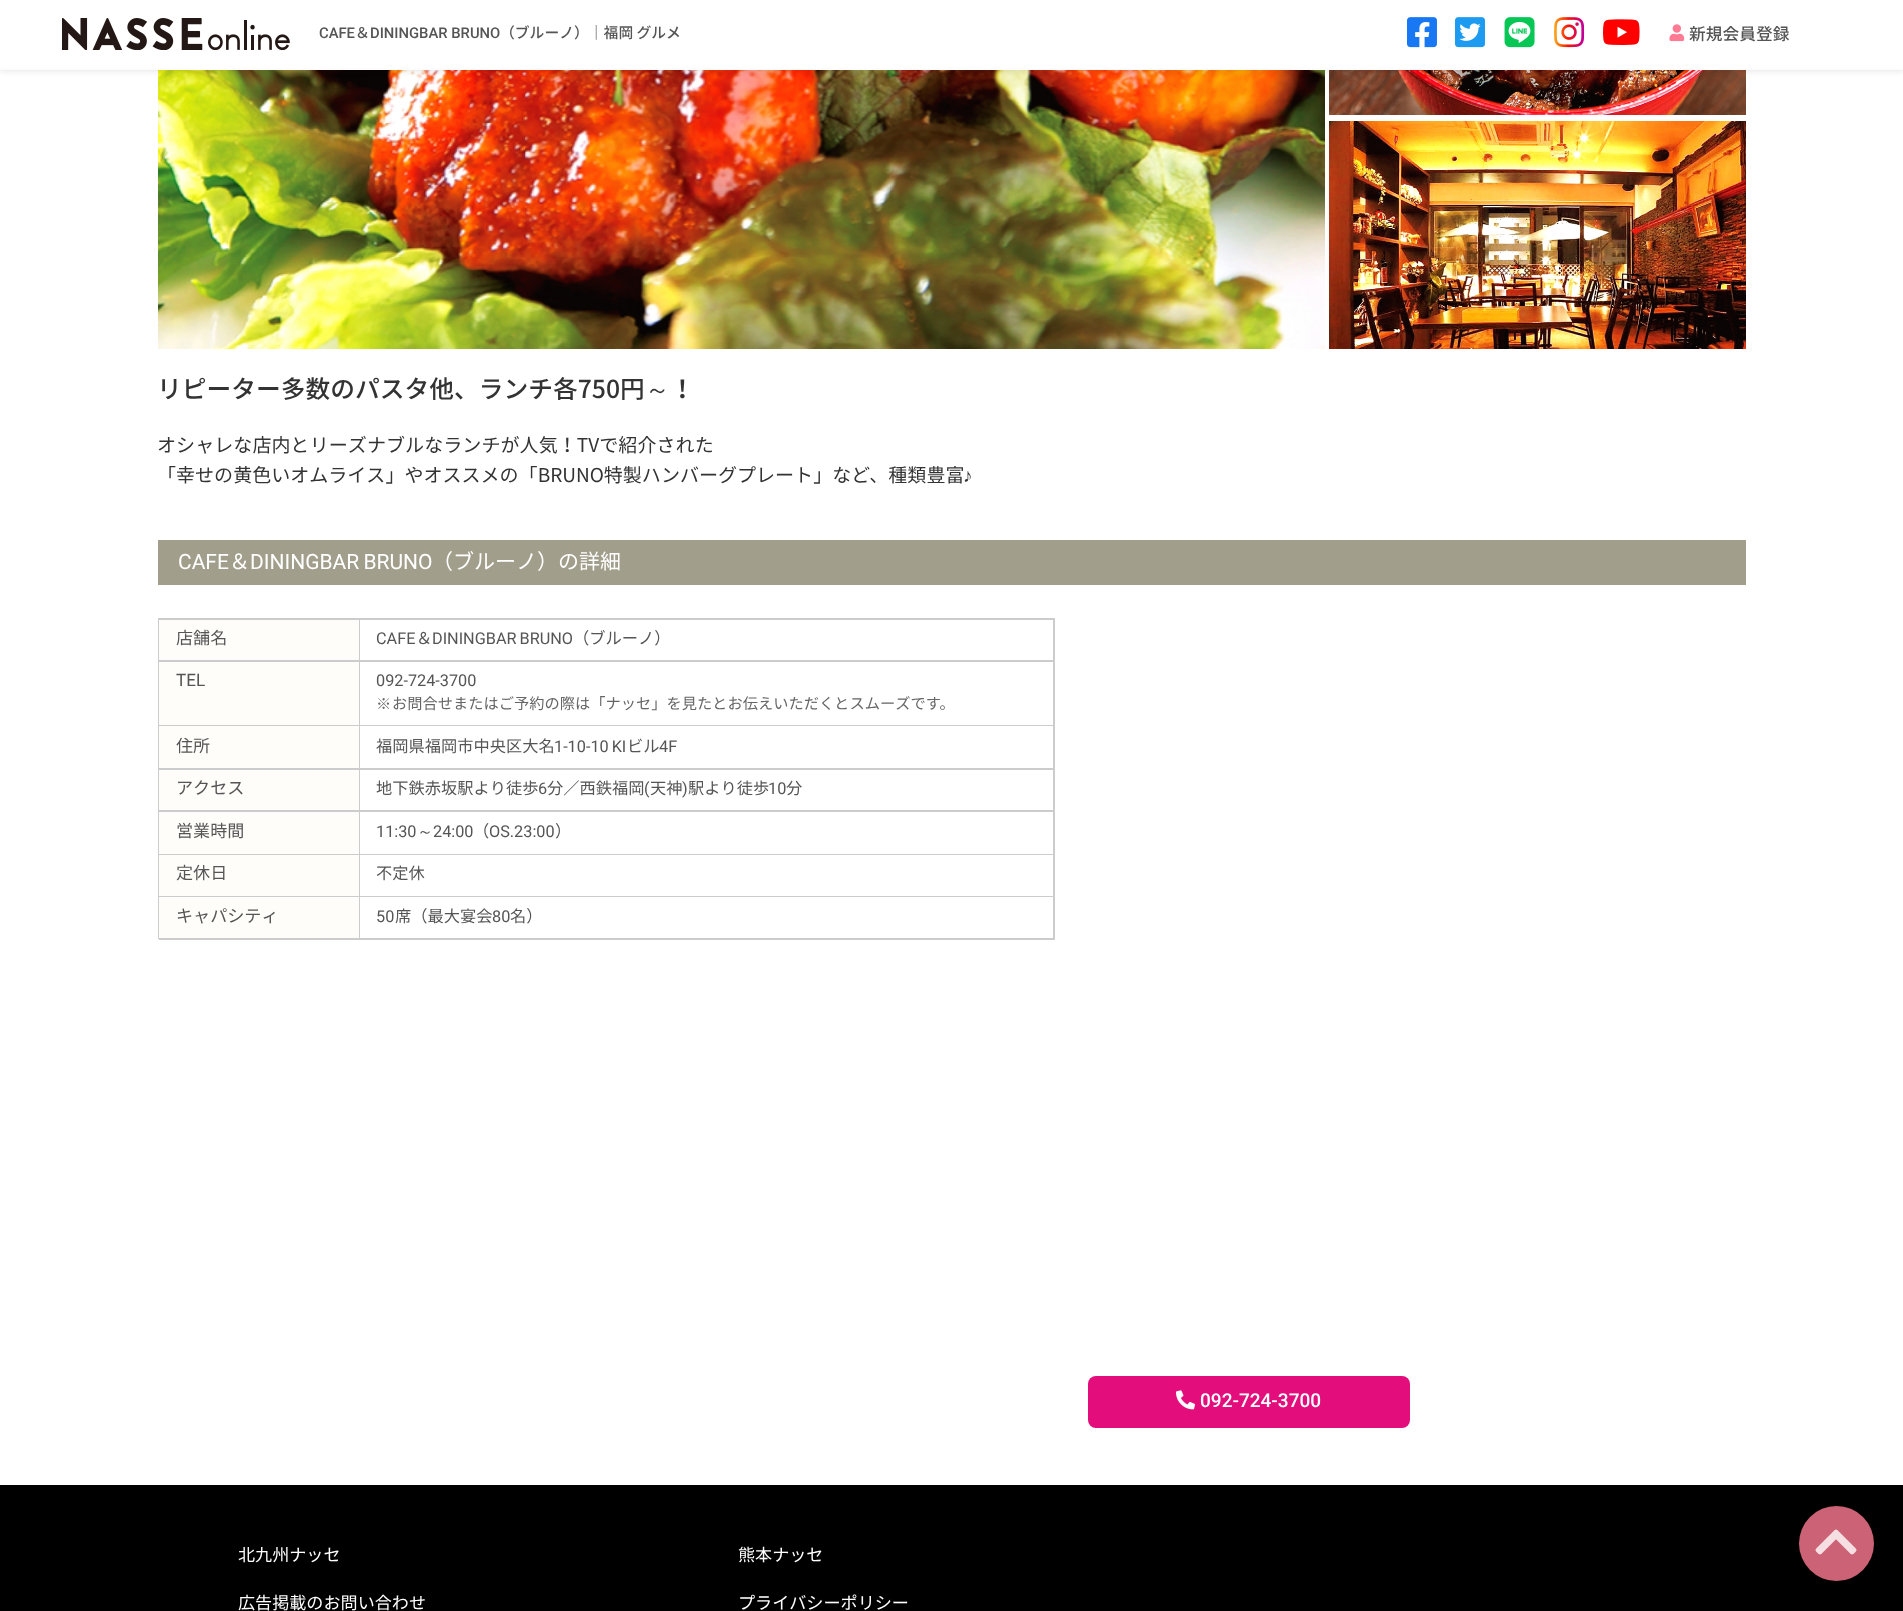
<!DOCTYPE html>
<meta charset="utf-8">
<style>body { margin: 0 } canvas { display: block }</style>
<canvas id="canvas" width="1903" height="1611"></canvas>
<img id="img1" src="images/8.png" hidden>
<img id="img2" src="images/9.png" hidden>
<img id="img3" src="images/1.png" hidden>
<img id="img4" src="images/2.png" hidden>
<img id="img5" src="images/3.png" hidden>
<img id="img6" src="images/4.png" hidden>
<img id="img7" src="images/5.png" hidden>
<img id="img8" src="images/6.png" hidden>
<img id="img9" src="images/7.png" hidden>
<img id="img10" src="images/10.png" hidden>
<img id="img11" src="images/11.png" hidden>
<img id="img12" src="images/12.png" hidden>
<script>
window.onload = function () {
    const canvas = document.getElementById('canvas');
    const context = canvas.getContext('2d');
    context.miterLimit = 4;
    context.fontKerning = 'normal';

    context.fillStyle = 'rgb(255, 255, 255)';
    context.fillRect(0, 0, 1903, 1611);
    context.drawImage(document.getElementById('img1'), 158, 70, 1167, 279);
    context.drawImage(document.getElementById('img2'), 1329, 70, 417, 45);
    context.fillStyle = 'rgba(0, 0, 0, 0.1)';
    context.filter = 'blur(3px)';
    context.beginPath();
    context.rect(0, 2, 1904, 69);
    context.fill();
    context.filter = 'none';
    context.fillStyle = 'rgb(255, 255, 255)';
    context.fillRect(0, 0, 1903, 68);
    context.fillStyle = 'rgb(252, 252, 252)';
    context.fillRect(0, 68, 1903, 2);
    context.drawImage(document.getElementById('img3'), 62, 18, 228, 32);
    context.drawImage(document.getElementById('img4'), 1407, 17, 30, 31);
    context.drawImage(document.getElementById('img5'), 1455, 17, 30, 31);
    context.drawImage(document.getElementById('img6'), 1504, 17, 31, 31);
    context.drawImage(document.getElementById('img7'), 1554, 17, 31, 31);
    context.drawImage(document.getElementById('img8'), 1603, 19, 37, 26);
    context.drawImage(document.getElementById('img9'), 1669, 24, 16, 18);
    context.drawImage(document.getElementById('img10'), 1329, 121, 417, 228);
    context.fillStyle = 'rgb(161, 158, 139)';
    context.fillRect(158, 540, 1588, 45);
    context.fillStyle = 'rgb(204, 204, 204)';
    context.fillRect(158, 618, 897, 2);
    context.fillRect(158, 620, 1, 319);
    context.fillStyle = 'rgb(254, 253, 250)';
    context.fillRect(159, 620, 200, 40);
    context.fillStyle = 'rgb(204, 204, 204)';
    context.fillRect(359, 620, 1, 319);
    context.fillRect(159, 660, 201, 2);
    context.fillRect(1053, 620, 2, 319);
    context.fillRect(360, 660, 695, 2);
    context.fillStyle = 'rgb(254, 253, 250)';
    context.fillRect(159, 662, 200, 63);
    context.fillStyle = 'rgb(204, 204, 204)';
    context.fillRect(159, 725, 896, 1);
    context.fillStyle = 'rgb(254, 253, 250)';
    context.fillRect(159, 726, 200, 42);
    context.fillStyle = 'rgb(204, 204, 204)';
    context.fillRect(159, 768, 896, 2);
    context.fillStyle = 'rgb(254, 253, 250)';
    context.fillRect(159, 770, 200, 40);
    context.fillStyle = 'rgb(204, 204, 204)';
    context.fillRect(159, 810, 896, 2);
    context.fillStyle = 'rgb(254, 253, 250)';
    context.fillRect(159, 812, 200, 42);
    context.fillStyle = 'rgb(204, 204, 204)';
    context.fillRect(159, 854, 896, 1);
    context.fillStyle = 'rgb(254, 253, 250)';
    context.fillRect(159, 855, 200, 41);
    context.fillStyle = 'rgb(204, 204, 204)';
    context.fillRect(159, 896, 896, 1);
    context.fillStyle = 'rgb(254, 253, 250)';
    context.fillRect(159, 897, 200, 41);
    context.fillStyle = 'rgb(204, 204, 204)';
    context.fillRect(159, 938, 896, 2);
    context.fillStyle = 'rgb(228, 13, 124)';
    context.beginPath();
    context.roundRect(1088, 1376, 322, 52, 8);
    context.fill();
    context.drawImage(document.getElementById('img11'), 1176, 1390, 19, 20);
    context.fillStyle = 'rgb(0, 0, 0)';
    context.fillRect(0, 1485, 1903, 126);
    context.fillStyle = 'rgb(204, 98, 118)';
    context.beginPath();
    context.arc(1836.5, 1543.5, 37.5, 0, 2 * Math.PI);
    context.fill();
    context.drawImage(document.getElementById('img12'), 1815, 1529, 42, 26);
    context.font = '500 14.8px Roboto';
    context.fillStyle = 'rgb(85, 85, 85)';
    context.fillText('CAFE', 319, 38);
    context.font = '500 14.8px Noto Sans JP';
    context.fillText('＆', 355, 38);
    context.font = '500 14.8px Roboto';
    context.fillText('DININGBAR BRUNO', 370, 38);
    context.font = '500 14.8px Noto Sans JP';
    context.fillText('（ブルーノ）｜福岡 グルメ', 500, 38);
    context.font = '500 16.75px Noto Sans JP';
    context.fillText('新規会員登録', 1689, 40);
    context.font = '500 24.75px Noto Sans JP';
    context.fillStyle = 'rgb(51, 51, 51)';
    context.fillText('リピーター多数のパスタ他、ランチ各750円', 157, 398);
    context.font = '500 24.75px WenQuanYi Zen Hei';
    context.fillText('～', 645, 398);
    context.font = '500 24.75px Noto Sans JP';
    context.fillText('！', 670, 398);
    context.letterSpacing = '0.05px';
    context.font = '19.05px Noto Sans JP';
    context.fillText('オシャレな店内とリーズナブルなランチが人気！TVで紹介された', 157, 452);
    context.letterSpacing = '0px';
    context.fillText('「幸せの黄色いオムライス」やオススメの「BRUNO特製ハンバーグプレート」など、種類豊富', 157, 482);
    context.font = '19.05px Liberation Serif';
    context.fillText('♪', 963, 482);
    context.font = '21px Roboto';
    context.fillStyle = 'rgb(255, 255, 255)';
    context.fillText('CAFE', 178, 569);
    context.font = '21px Noto Sans JP';
    context.fillText('＆', 229, 569);
    context.wordSpacing = '-1px';
    context.font = '21px Roboto';
    context.fillText('DININGBAR BRUNO', 250, 569);
    context.wordSpacing = '0px';
    context.font = '21px Noto Sans JP';
    context.fillText('（ブルーノ）の詳細', 432, 569);
    context.font = '17.1px Noto Sans JP';
    context.fillStyle = 'rgb(85, 85, 85)';
    context.fillText('店舗名', 176, 644);
    context.font = '16.25px Roboto';
    context.fillText('CAFE', 376, 644);
    context.font = '16.25px Noto Sans JP';
    context.fillText('＆', 416, 644);
    context.wordSpacing = '-1px';
    context.font = '16.25px Roboto';
    context.fillText('DININGBAR BRUNO', 432, 644);
    context.wordSpacing = '0px';
    context.font = '16.25px Noto Sans JP';
    context.fillText('（ブルーノ）', 573, 644);
    context.font = '17.1px Roboto';
    context.fillText('TEL', 176, 686);
    context.font = '16.25px Roboto';
    context.fillText('092-724-3700', 376, 686);
    context.font = '500 15.25px WenQuanYi Zen Hei';
    context.fillStyle = 'rgb(102, 102, 102)';
    context.fillText('※', 376, 709);
    context.font = '15.25px Noto Sans JP';
    context.fillText('お問合せまたはご予約の際は「ナッセ」を見たとお伝えいただくとスムーズです。', 392, 709);
    context.font = '17.1px Noto Sans JP';
    context.fillStyle = 'rgb(85, 85, 85)';
    context.fillText('住所', 176, 752);
    context.font = '16.25px Noto Sans JP';
    context.fillText('福岡県福岡市中央区大名', 376, 752);
    context.wordSpacing = '-1px';
    context.font = '16.25px Roboto';
    context.fillText('1-10-10 KI', 554, 752);
    context.wordSpacing = '0px';
    context.font = '16.25px Noto Sans JP';
    context.fillText('ビル', 627, 752);
    context.font = '16.25px Roboto';
    context.fillText('4F', 659, 752);
    context.font = '17.1px Noto Sans JP';
    context.fillText('アクセス', 176, 794);
    context.font = '16.25px Noto Sans JP';
    context.fillText('地下鉄赤坂駅より徒歩', 376, 794);
    context.font = '16.25px Roboto';
    context.fillText('6', 538, 794);
    context.font = '16.25px Noto Sans JP';
    context.fillText('分／西鉄福岡', 547, 794);
    context.font = '16.25px Roboto';
    context.fillText('(', 644, 794);
    context.font = '16.25px Noto Sans JP';
    context.fillText('天神', 650, 794);
    context.font = '16.25px Roboto';
    context.fillText(')', 682, 794);
    context.font = '16.25px Noto Sans JP';
    context.fillText('駅より徒歩', 688, 794);
    context.font = '16.25px Roboto';
    context.fillText('10', 768, 794);
    context.font = '16.25px Noto Sans JP';
    context.fillText('分', 786, 794);
    context.font = '17.1px Noto Sans JP';
    context.fillText('営業時間', 176, 837);
    context.font = '16.25px Roboto';
    context.fillText('11:30', 376, 837);
    context.font = '500 16.25px WenQuanYi Zen Hei';
    context.fillText('～', 417, 837);
    context.font = '16.25px Roboto';
    context.fillText('24:00', 433, 837);
    context.font = '16.25px Noto Sans JP';
    context.fillText('（', 473, 837);
    context.font = '16.25px Roboto';
    context.fillText('OS.23:00', 489, 837);
    context.font = '16.25px Noto Sans JP';
    context.fillText('）', 555, 837);
    context.font = '17.1px Noto Sans JP';
    context.fillText('定休日', 176, 879);
    context.font = '16.25px Noto Sans JP';
    context.fillText('不定休', 376, 879);
    context.font = '17.1px Noto Sans JP';
    context.fillText('キャパシティ', 176, 922);
    context.font = '16.25px Roboto';
    context.fillText('50', 376, 922);
    context.font = '16.25px Noto Sans JP';
    context.fillText('席（最大宴会', 395, 922);
    context.font = '16.25px Roboto';
    context.fillText('80', 492, 922);
    context.font = '16.25px Noto Sans JP';
    context.fillText('名）', 510, 922);
    context.font = '500 19.05px Roboto';
    context.fillStyle = 'rgb(255, 255, 255)';
    context.fillText('092-724-3700', 1200, 1407);
    context.font = '17.1px Noto Sans JP';
    context.fillText('北九州ナッセ', 238, 1561);
    context.fillText('熊本ナッセ', 738, 1561);
    context.fillText('広告掲載のお問い合わせ', 238, 1609);
    context.fillText('プライバシーポリシー', 738, 1609);
};
</script>
